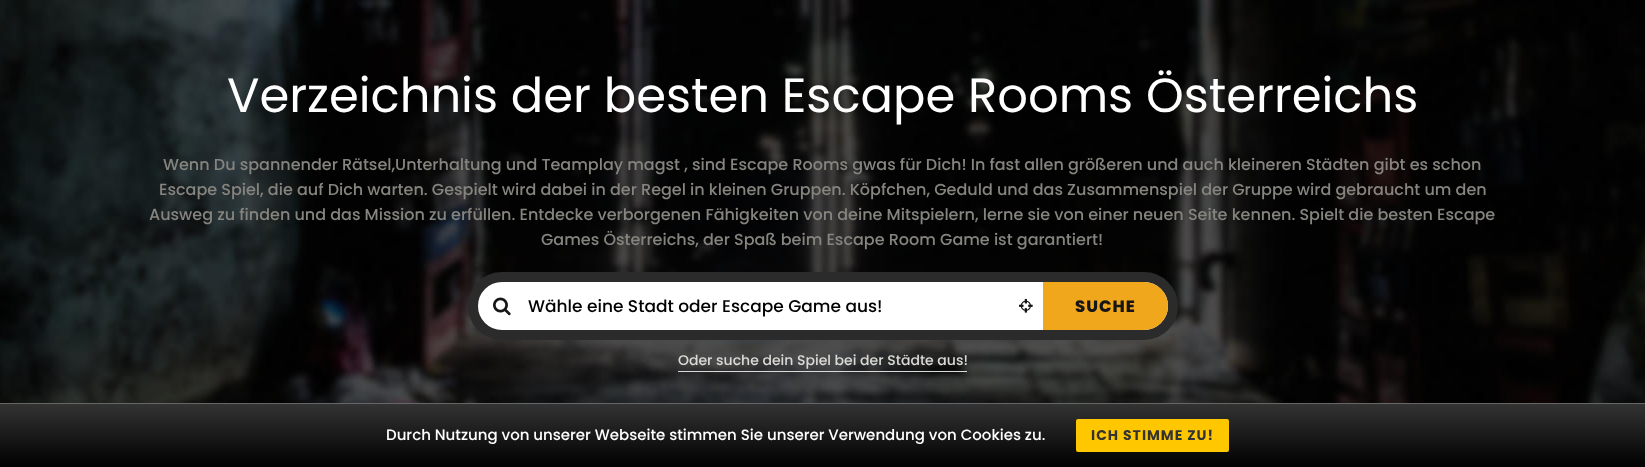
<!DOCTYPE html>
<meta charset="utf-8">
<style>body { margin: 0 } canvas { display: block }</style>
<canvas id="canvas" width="1645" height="467"></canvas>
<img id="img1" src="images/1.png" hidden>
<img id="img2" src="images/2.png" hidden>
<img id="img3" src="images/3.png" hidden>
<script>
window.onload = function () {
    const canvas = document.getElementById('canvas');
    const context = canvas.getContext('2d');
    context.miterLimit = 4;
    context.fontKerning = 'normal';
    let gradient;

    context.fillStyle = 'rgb(255, 255, 255)';
    context.fillRect(0, 0, 1645, 467);
    context.drawImage(document.getElementById('img1'), 0, 0, 1645, 403);
    context.beginPath();
    context.roundRect(473, 277, 700, 58, 29);
    context.fill();
    context.strokeStyle = 'rgb(43, 43, 43)';
    context.lineWidth = 10;
    context.stroke();
    context.drawImage(document.getElementById('img2'), 493, 297, 18, 19);
    context.drawImage(document.getElementById('img3'), 1019, 298, 14, 15);
    context.fillStyle = 'rgb(241, 167, 27)';
    context.beginPath();
    context.roundRect(1043, 282, 125, 48, [0, 24, 24, 0]);
    context.fill();
    context.fillStyle = 'rgb(220, 218, 214)';
    context.fillRect(678, 371, 289, 1);
    gradient = context.createLinearGradient(823, 404, 823, 467);
    gradient.addColorStop(0, 'rgb(51, 51, 51)');
    gradient.addColorStop(1, 'rgb(0, 0, 0)');
    context.fillStyle = gradient;
    context.fillRect(0, 404, 1645, 63);
    context.fillStyle = 'rgb(102, 102, 102)';
    context.fillRect(0, 403, 1645, 1);
    context.fillStyle = 'rgb(254, 199, 0)';
    context.beginPath();
    context.roundRect(1076, 419, 153, 33, 2);
    context.fill();
    context.font = '48px Poppins';
    context.fillStyle = 'rgb(255, 255, 255)';
    context.fillText('Verzeichnis der besten Escape Rooms Österreichs', 227, 112);
    context.font = '500 16px Poppins';
    context.fillStyle = 'rgb(134, 132, 126)';
    context.fillText('Wenn Du spannender Rätsel,Unterhaltung und Teamplay magst , sind Escape Rooms gwas für Dich! In fast allen größeren und auch kleineren Städten gibt es schon', 163, 170);
    context.fillText('Escape Spiel, die auf Dich warten. Gespielt wird dabei in der Regel in kleinen Gruppen. Köpfchen, Geduld und das Zusammenspiel der Gruppe wird gebraucht um den', 159, 195);
    context.fillText('Ausweg zu finden und das Mission zu erfüllen. Entdecke verborgenen Fähigkeiten von deine Mitspielern, lerne sie von einer neuen Seite kennen. Spielt die besten Escape', 149, 220);
    context.fillText('Games Österreichs, der Spaß beim Escape Room Game ist garantiert!', 541, 245);
    context.font = '500 17px Poppins';
    context.fillStyle = 'rgb(0, 0, 0)';
    context.fillText('Wähle eine Stadt oder Escape Game aus!', 528, 312);
    context.letterSpacing = '1px';
    context.font = '800 16.5px Poppins';
    context.fillStyle = 'rgb(22, 22, 22)';
    context.fillText('SUCHE', 1075, 312);
    context.letterSpacing = '0px';
    context.font = '500 14px Poppins';
    context.fillStyle = 'rgb(220, 218, 214)';
    context.fillText('Oder suche dein Spiel bei der Städte aus!', 678, 365);
    context.font = '500 15px Poppins';
    context.fillStyle = 'rgb(255, 255, 255)';
    context.fillText('Durch Nutzung von unserer Webseite stimmen Sie unserer Verwendung von Cookies zu.', 386, 440);
    context.letterSpacing = '1px';
    context.font = 'bold 14px Poppins';
    context.fillStyle = 'rgb(51, 51, 51)';
    context.fillText('ICH STIMME ZU!', 1091, 440);
};
</script>
